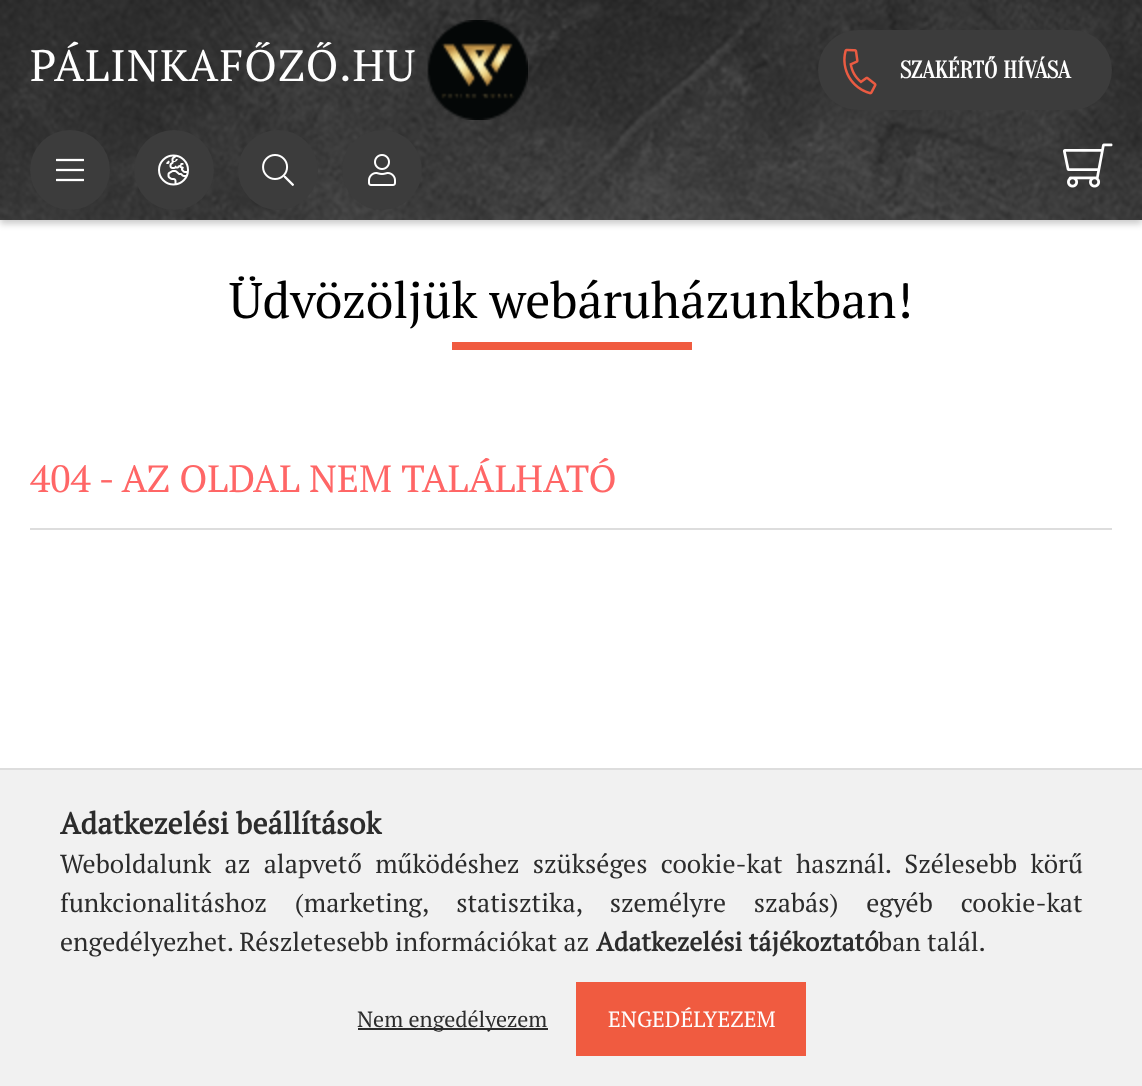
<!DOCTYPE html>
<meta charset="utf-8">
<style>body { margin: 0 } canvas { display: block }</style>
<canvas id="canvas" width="1142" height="1086"></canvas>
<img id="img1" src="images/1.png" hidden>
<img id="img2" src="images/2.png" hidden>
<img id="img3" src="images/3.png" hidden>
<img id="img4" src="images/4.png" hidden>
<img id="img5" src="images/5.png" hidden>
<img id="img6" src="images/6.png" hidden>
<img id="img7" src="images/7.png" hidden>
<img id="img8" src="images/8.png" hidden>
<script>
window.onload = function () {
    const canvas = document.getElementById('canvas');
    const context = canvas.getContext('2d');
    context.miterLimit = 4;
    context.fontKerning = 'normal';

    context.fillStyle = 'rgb(255, 255, 255)';
    context.fillRect(0, 0, 1142, 1086);
    context.fillStyle = 'rgba(0, 0, 0, 0.2)';
    context.filter = 'blur(3px)';
    context.beginPath();
    context.rect(0, 4, 1142, 220);
    context.fill();
    context.filter = 'none';
    context.drawImage(document.getElementById('img1'), 0, 0, 1142, 220);
    context.drawImage(document.getElementById('img2'), 427, 20, 101, 100);
    context.fillStyle = 'rgb(60, 60, 60)';
    context.beginPath();
    context.roundRect(818, 30, 294, 80, 40);
    context.fill();
    context.drawImage(document.getElementById('img3'), 843, 48, 34, 47);
    context.beginPath();
    context.arc(70, 170, 40, 0, 2 * Math.PI);
    context.fill();
    context.drawImage(document.getElementById('img4'), 56, 158, 28, 24);
    context.beginPath();
    context.arc(174, 170, 40, 0, 2 * Math.PI);
    context.fill();
    context.drawImage(document.getElementById('img5'), 158, 154, 31, 32);
    context.beginPath();
    context.arc(278, 170, 40, 0, 2 * Math.PI);
    context.fill();
    context.drawImage(document.getElementById('img6'), 262, 154, 32, 32);
    context.beginPath();
    context.arc(382, 170, 40, 0, 2 * Math.PI);
    context.fill();
    context.drawImage(document.getElementById('img7'), 368, 154, 28, 32);
    context.drawImage(document.getElementById('img8'), 1063, 143, 50, 45);
    context.fillStyle = 'rgb(240, 91, 64)';
    context.fillRect(452, 342, 240, 8);
    context.fillStyle = 'rgb(221, 221, 221)';
    context.fillRect(30, 528, 1082, 2);
    context.fillStyle = 'rgb(241, 241, 241)';
    context.fillRect(0, 770, 1142, 316);
    context.fillStyle = 'rgb(221, 221, 221)';
    context.fillRect(0, 768, 1142, 2);
    context.fillStyle = 'rgb(44, 44, 44)';
    context.fillRect(358, 1028, 190, 2);
    context.fillStyle = 'rgb(240, 91, 64)';
    context.fillRect(576, 982, 230, 74);
    context.letterSpacing = '1px';
    context.font = '44px PT Serif';
    context.fillStyle = 'rgb(254, 254, 254)';
    context.fillText('PÁLINKAFŐZŐ.HU', 30, 81);
    context.letterSpacing = '0px';
    context.font = 'bold 24px Oranienbaum';
    context.fillText('SZAKÉRTŐ HÍVÁSA', 900, 78);
    context.font = '50px PT Serif';
    context.fillStyle = 'rgb(0, 0, 0)';
    context.fillText('Üdvözöljük webáruházunkban!', 229, 318);
    context.font = '38px PT Serif';
    context.fillStyle = 'rgb(255, 102, 102)';
    context.fillText('404 - AZ OLDAL NEM TALÁLHATÓ', 30, 492);
    context.font = 'bold 30px PT Serif';
    context.fillStyle = 'rgb(44, 44, 44)';
    context.fillText('Adatkezelési beállítások', 60, 834);
    context.wordSpacing = '7px';
    context.font = '26px PT Serif';
    context.fillText('Weboldalunk az alapvető működéshez szükséges cookie-kat használ. Szélesebb körű', 60, 873);
    context.wordSpacing = '21.5px';
    context.fillText('funkcionalitáshoz (marketing, statisztika, személyre szabás) egyéb cookie-kat', 60, 912);
    context.wordSpacing = '0px';
    context.fillText('engedélyezhet. Részletesebb információkat az', 60, 951);
    context.font = 'bold 26px PT Serif';
    context.fillText('Adatkezelési tájékoztató', 596, 951);
    context.font = '26px PT Serif';
    context.fillText('ban talál.', 878, 951);
    context.font = '22px PT Serif';
    context.fillText('Nem engedélyezem', 357, 1027);
    context.fillStyle = 'rgb(254, 254, 254)';
    context.fillText('ENGEDÉLYEZEM', 608, 1027);
};
</script>
